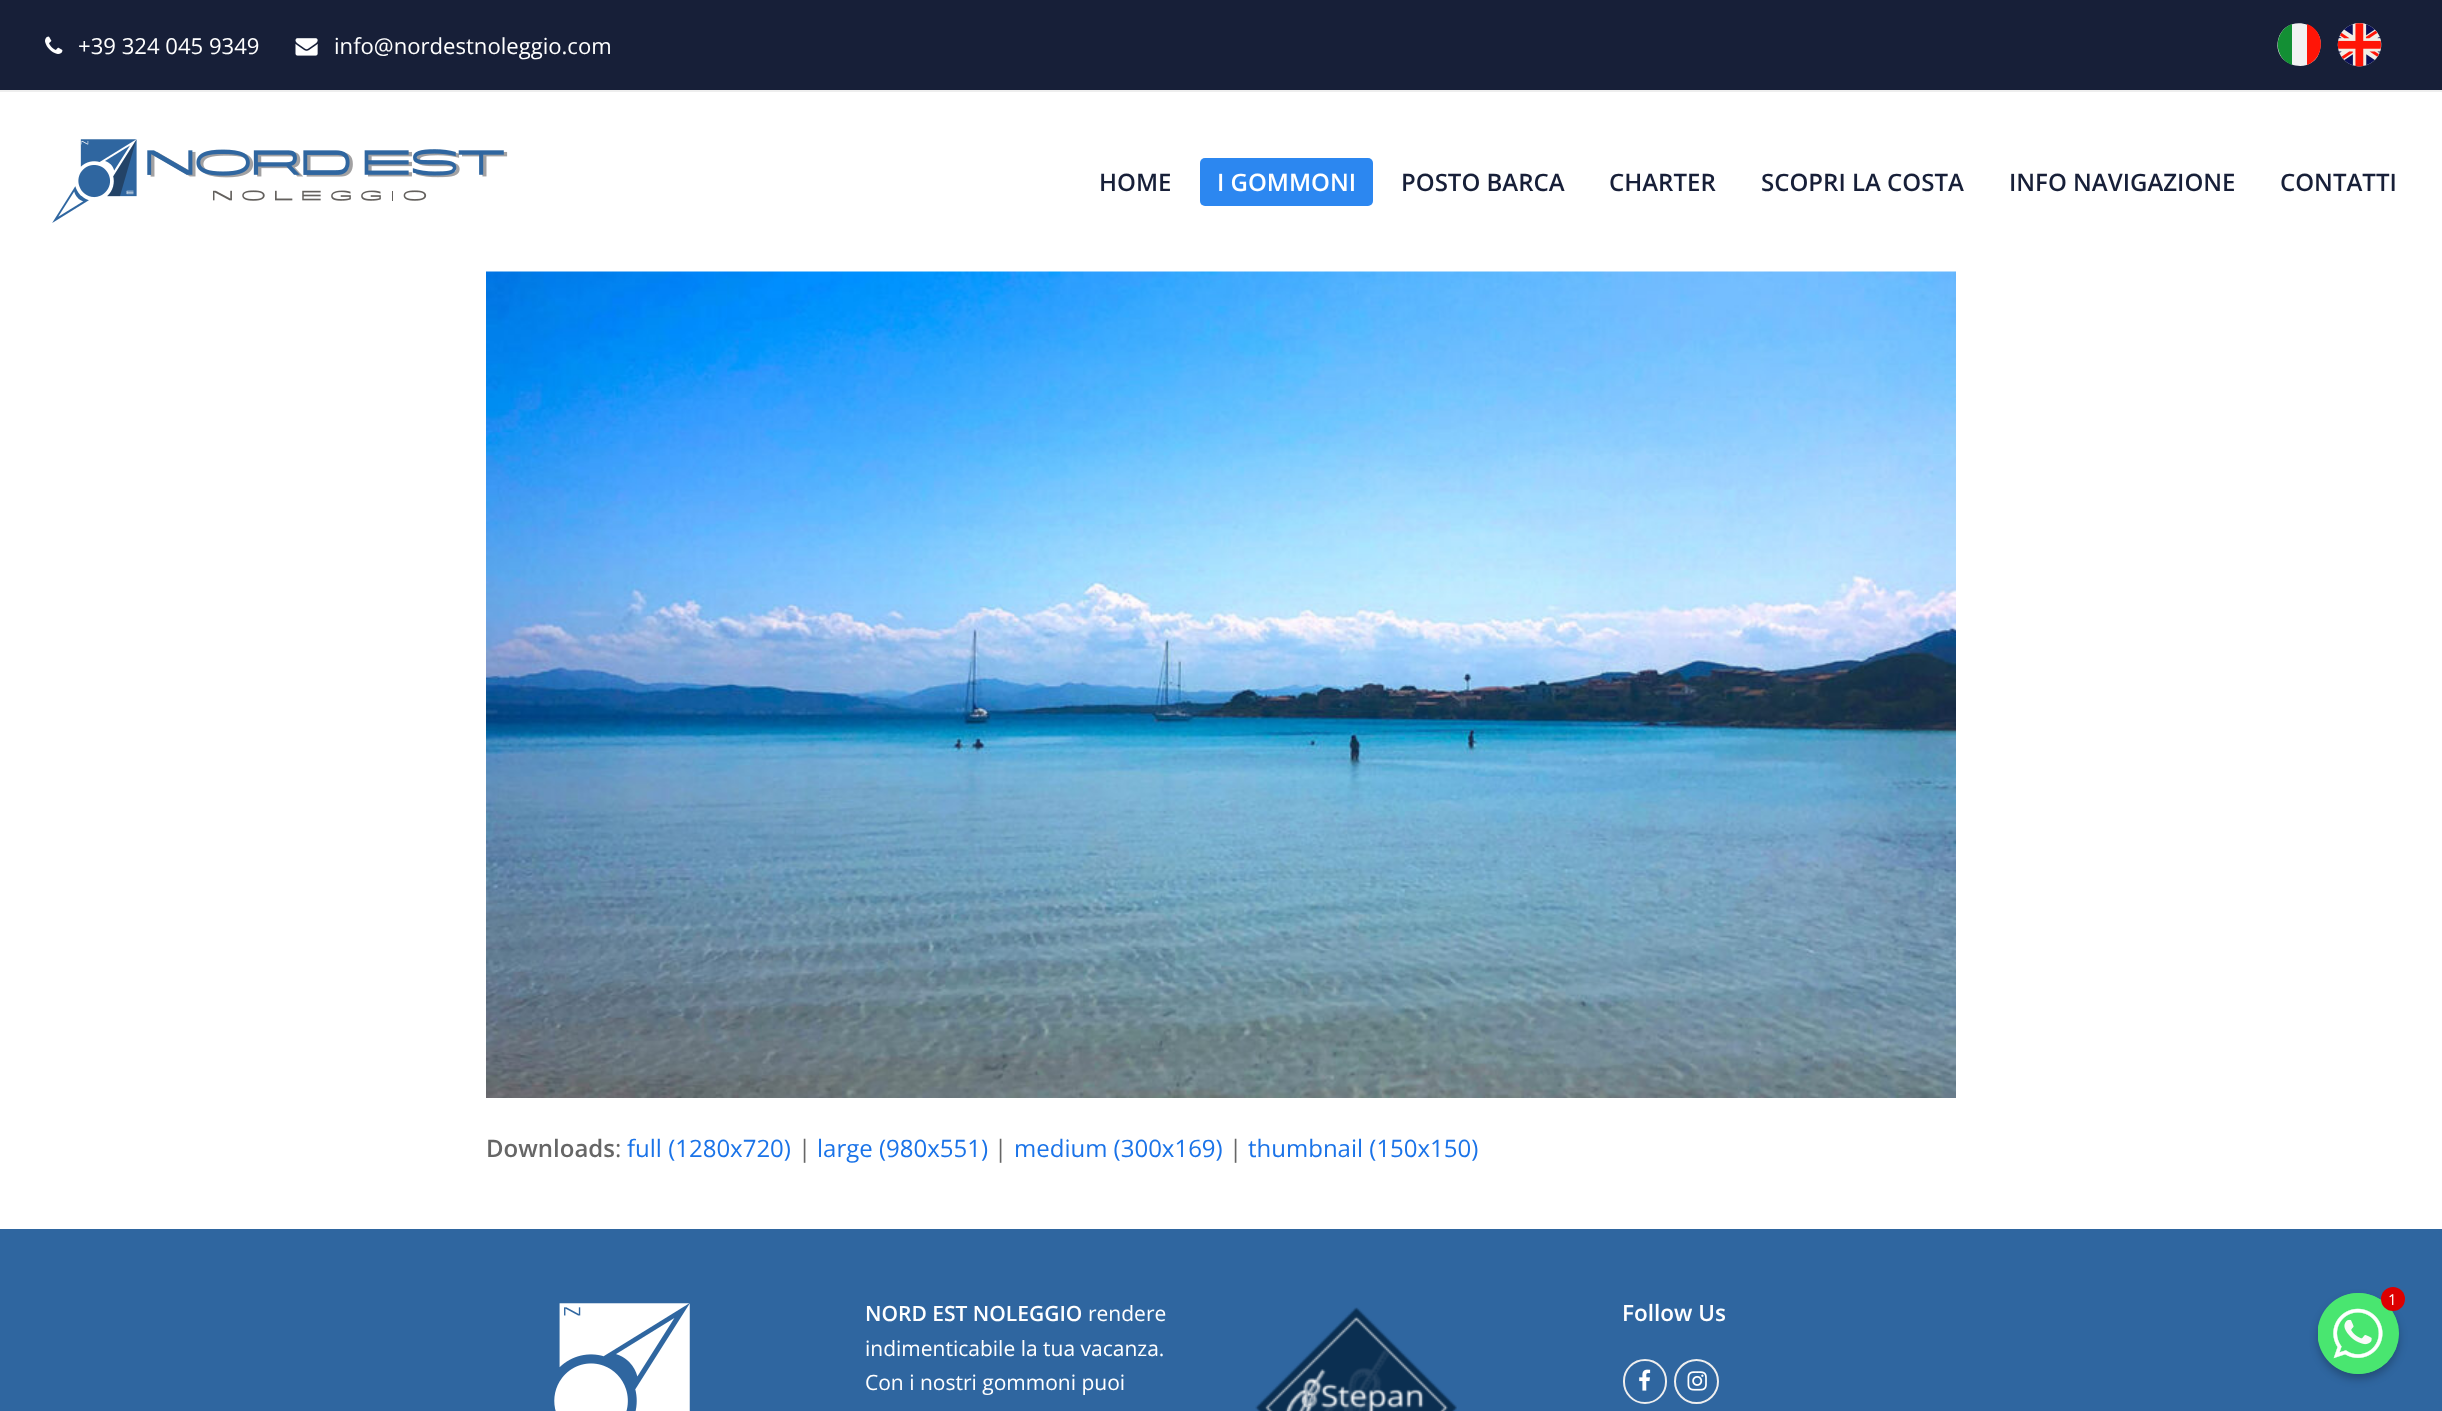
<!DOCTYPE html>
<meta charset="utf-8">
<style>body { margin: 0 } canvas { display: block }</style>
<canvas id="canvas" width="2442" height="1411"></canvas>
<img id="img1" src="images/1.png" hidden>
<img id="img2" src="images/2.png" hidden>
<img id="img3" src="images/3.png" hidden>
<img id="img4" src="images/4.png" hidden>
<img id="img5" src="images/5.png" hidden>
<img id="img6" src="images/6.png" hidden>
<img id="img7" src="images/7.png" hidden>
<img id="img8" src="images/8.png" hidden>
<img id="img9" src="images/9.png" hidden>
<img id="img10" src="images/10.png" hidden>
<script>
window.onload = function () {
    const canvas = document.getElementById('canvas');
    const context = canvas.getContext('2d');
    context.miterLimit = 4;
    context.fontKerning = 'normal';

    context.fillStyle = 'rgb(255, 255, 255)';
    context.fillRect(0, 0, 2442, 1411);
    context.fillStyle = 'rgb(23, 31, 56)';
    context.fillRect(0, 0, 2442, 90);
    context.fillStyle = 'rgb(238, 238, 238)';
    context.fillRect(0, 90, 2442, 2);
    context.drawImage(document.getElementById('img1'), 45, 36, 18, 18);
    context.drawImage(document.getElementById('img2'), 295, 38, 23, 18);
    context.fillStyle = 'rgb(242, 242, 242)';
    context.beginPath();
    context.moveTo(2278, 40);
    context.bezierCurveTo(2285, 12, 2327, 22, 2320, 50);
    context.bezierCurveTo(2314, 77, 2272, 67, 2278, 40);
    context.fill();
    context.fillStyle = 'rgb(19, 143, 52)';
    context.beginPath();
    context.moveTo(2292, 24);
    context.bezierCurveTo(2273, 31, 2273, 58, 2292, 65);
    context.closePath();
    context.fill();
    context.fillStyle = 'rgb(255, 21, 7)';
    context.beginPath();
    context.moveTo(2307, 24);
    context.lineTo(2307, 65);
    context.bezierCurveTo(2325, 58, 2326, 31, 2307, 24);
    context.fill();
    context.drawImage(document.getElementById('img3'), 2337, 23, 45, 44);
    context.drawImage(document.getElementById('img4'), 52, 139, 456, 84);
    context.fillStyle = 'rgb(44, 135, 240)';
    context.beginPath();
    context.roundRect(1200, 158, 173, 48, 5);
    context.fill();
    context.drawImage(document.getElementById('img5'), 486, 271, 1470, 827);
    context.fillStyle = 'rgb(47, 102, 160)';
    context.fillRect(0, 1229, 2442, 182);
    context.drawImage(document.getElementById('img6'), 554, 1303, 136, 108);
    context.drawImage(document.getElementById('img7'), 1255, 1307, 202, 104);
    context.beginPath();
    context.roundRect(1624, 1360, 42, 43, 21);
    context.strokeStyle = 'rgb(238, 238, 238)';
    context.lineWidth = 2;
    context.stroke();
    context.drawImage(document.getElementById('img8'), 1639, 1369, 12, 22);
    context.beginPath();
    context.arc(1696.5, 1381.5, 21.5, 0, 2 * Math.PI);
    context.stroke();
    context.drawImage(document.getElementById('img9'), 1687, 1371, 20, 20);
    context.fillStyle = 'rgba(0, 0, 0, 0.25)';
    context.filter = 'blur(4.5px)';
    context.beginPath();
    context.roundRect(2318, 1298, 81, 81, 40.5);
    context.fill();
    context.filter = 'none';
    context.fillStyle = 'rgb(73, 230, 112)';
    context.beginPath();
    context.arc(2358.5, 1333.5, 40.5, 0, 2 * Math.PI);
    context.fill();
    context.drawImage(document.getElementById('img10'), 2318, 1293, 81, 81);
    context.fillStyle = 'rgb(221, 0, 0)';
    context.beginPath();
    context.arc(2393, 1299, 12, 0, 2 * Math.PI);
    context.fill();
    context.font = '22.1px Open Sans';
    context.fillStyle = 'rgb(255, 255, 255)';
    context.fillText('+39 324 045 9349', 78, 54);
    context.fillText('info@nordestnoleggio.com', 334, 54);
    context.font = '600 24px Open Sans';
    context.fillStyle = 'rgb(23, 31, 56)';
    context.fillText('HOME', 1099, 191);
    context.fillStyle = 'rgb(255, 255, 255)';
    context.fillText('I GOMMONI', 1217, 191);
    context.fillStyle = 'rgb(23, 31, 56)';
    context.fillText('POSTO BARCA', 1401, 191);
    context.fillText('CHARTER', 1609, 191);
    context.fillText('SCOPRI LA COSTA', 1761, 191);
    context.fillText('INFO NAVIGAZIONE', 2009, 191);
    context.fillText('CONTATTI', 2280, 191);
    context.fillStyle = 'rgb(102, 102, 102)';
    context.fillText('Downloads', 486, 1157);
    context.font = '24px Open Sans';
    context.fillText(':', 615, 1157);
    context.fillStyle = 'rgb(26, 115, 232)';
    context.fillText('full (1280x720)', 627, 1157);
    context.fillStyle = 'rgb(102, 102, 102)';
    context.fillText('|', 798, 1157);
    context.fillStyle = 'rgb(26, 115, 232)';
    context.fillText('large (980x551)', 817, 1157);
    context.fillStyle = 'rgb(102, 102, 102)';
    context.fillText('|', 994, 1157);
    context.fillStyle = 'rgb(26, 115, 232)';
    context.fillText('medium (300x169)', 1014, 1157);
    context.fillStyle = 'rgb(102, 102, 102)';
    context.fillText('|', 1229, 1157);
    context.fillStyle = 'rgb(26, 115, 232)';
    context.fillText('thumbnail (150x150)', 1248, 1157);
    context.font = '600 21px Open Sans';
    context.fillStyle = 'rgb(255, 255, 255)';
    context.fillText('NORD EST NOLEGGIO', 865, 1321);
    context.font = '21px Open Sans';
    context.fillText('rendere', 1088, 1321);
    context.fillText('indimenticabile la tua vacanza.', 865, 1356);
    context.fillText('Con i nostri gommoni puoi', 865, 1390);
    context.font = '600 22.5px Open Sans';
    context.fillText('Follow Us', 1622, 1321);
    context.font = '15px Open Sans';
    context.fillText('1', 2388, 1305);
};
</script>
